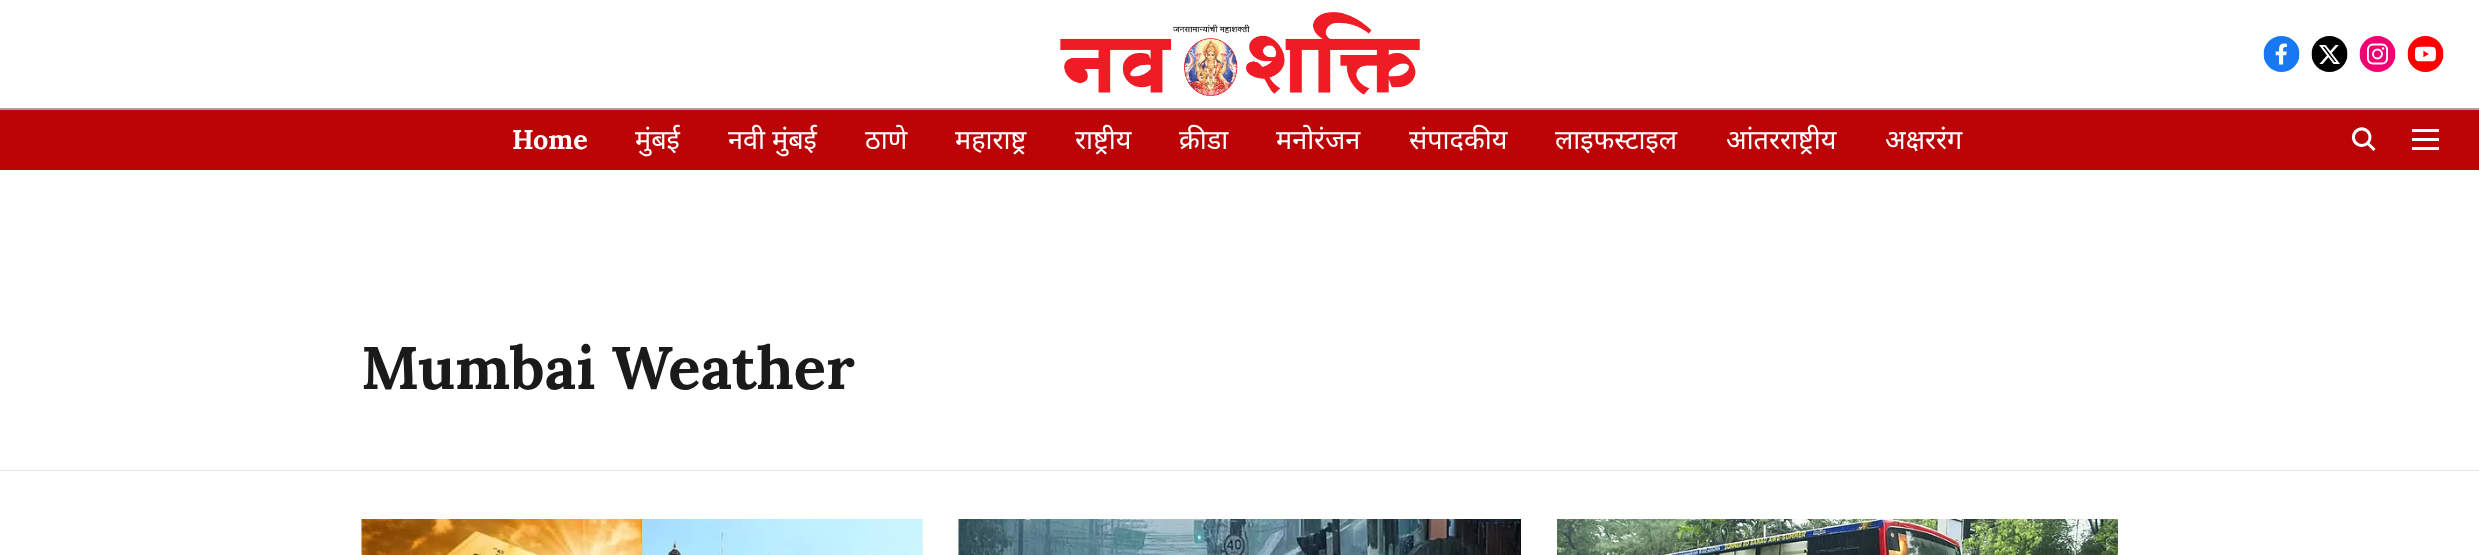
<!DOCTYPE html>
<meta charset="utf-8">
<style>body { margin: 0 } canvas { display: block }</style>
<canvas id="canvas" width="2479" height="555"></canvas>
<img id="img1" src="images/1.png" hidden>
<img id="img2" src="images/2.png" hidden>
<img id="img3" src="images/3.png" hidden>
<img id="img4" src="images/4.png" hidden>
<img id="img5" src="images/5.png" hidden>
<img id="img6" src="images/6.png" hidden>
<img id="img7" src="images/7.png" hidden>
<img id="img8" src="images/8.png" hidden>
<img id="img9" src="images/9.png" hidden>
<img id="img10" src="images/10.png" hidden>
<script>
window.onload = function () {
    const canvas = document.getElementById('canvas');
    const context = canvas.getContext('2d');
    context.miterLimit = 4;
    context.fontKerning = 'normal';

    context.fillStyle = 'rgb(255, 255, 255)';
    context.fillRect(0, 0, 2479, 555);
    context.fillStyle = 'rgb(164, 164, 164)';
    context.fillRect(0, 108, 2479, 2);
    context.drawImage(document.getElementById('img1'), 1059, 12, 361, 84);
    context.drawImage(document.getElementById('img2'), 2263, 36, 37, 36);
    context.drawImage(document.getElementById('img3'), 2311, 36, 37, 36);
    context.drawImage(document.getElementById('img4'), 2359, 36, 37, 36);
    context.drawImage(document.getElementById('img5'), 2407, 36, 37, 36);
    context.fillStyle = 'rgb(186, 4, 6)';
    context.fillRect(0, 110, 2479, 60);
    context.drawImage(document.getElementById('img6'), 2351, 127, 25, 24);
    context.drawImage(document.getElementById('img7'), 2412, 129, 27, 21);
    context.fillStyle = 'rgb(230, 230, 230)';
    context.fillRect(0, 470, 2479, 1);
    context.fillStyle = 'rgb(240, 240, 240)';
    context.fillRect(922, 519, 1, 36);
    context.drawImage(document.getElementById('img8'), 361, 519, 562, 36);
    context.drawImage(document.getElementById('img9'), 958, 519, 563, 36);
    context.drawImage(document.getElementById('img10'), 1557, 519, 561, 36);
    context.font = 'bold 27px Lora';
    context.fillStyle = 'rgb(255, 255, 255)';
    context.fillText('Home', 512, 149);
    context.font = '27px Noto Sans';
    context.fillText('मुंबई', 635, 149);
    context.fillText('नवी मुंबई', 728, 149);
    context.fillText('ठाणे', 865, 149);
    context.fillText('महाराष्ट्र', 955, 149);
    context.fillText('राष्ट्रीय', 1075, 149);
    context.fillText('क्रीडा', 1179, 149);
    context.fillText('मनोरंजन', 1276, 149);
    context.fillText('संपादकीय', 1409, 149);
    context.fillText('लाइफस्टाइल', 1555, 149);
    context.fillText('आंतरराष्ट्रीय', 1726, 149);
    context.fillText('अक्षररंग', 1885, 149);
    context.font = 'bold 60px Lora';
    context.fillStyle = 'rgb(26, 26, 26)';
    context.fillText('Mumbai Weather', 361, 389);
};
</script>
